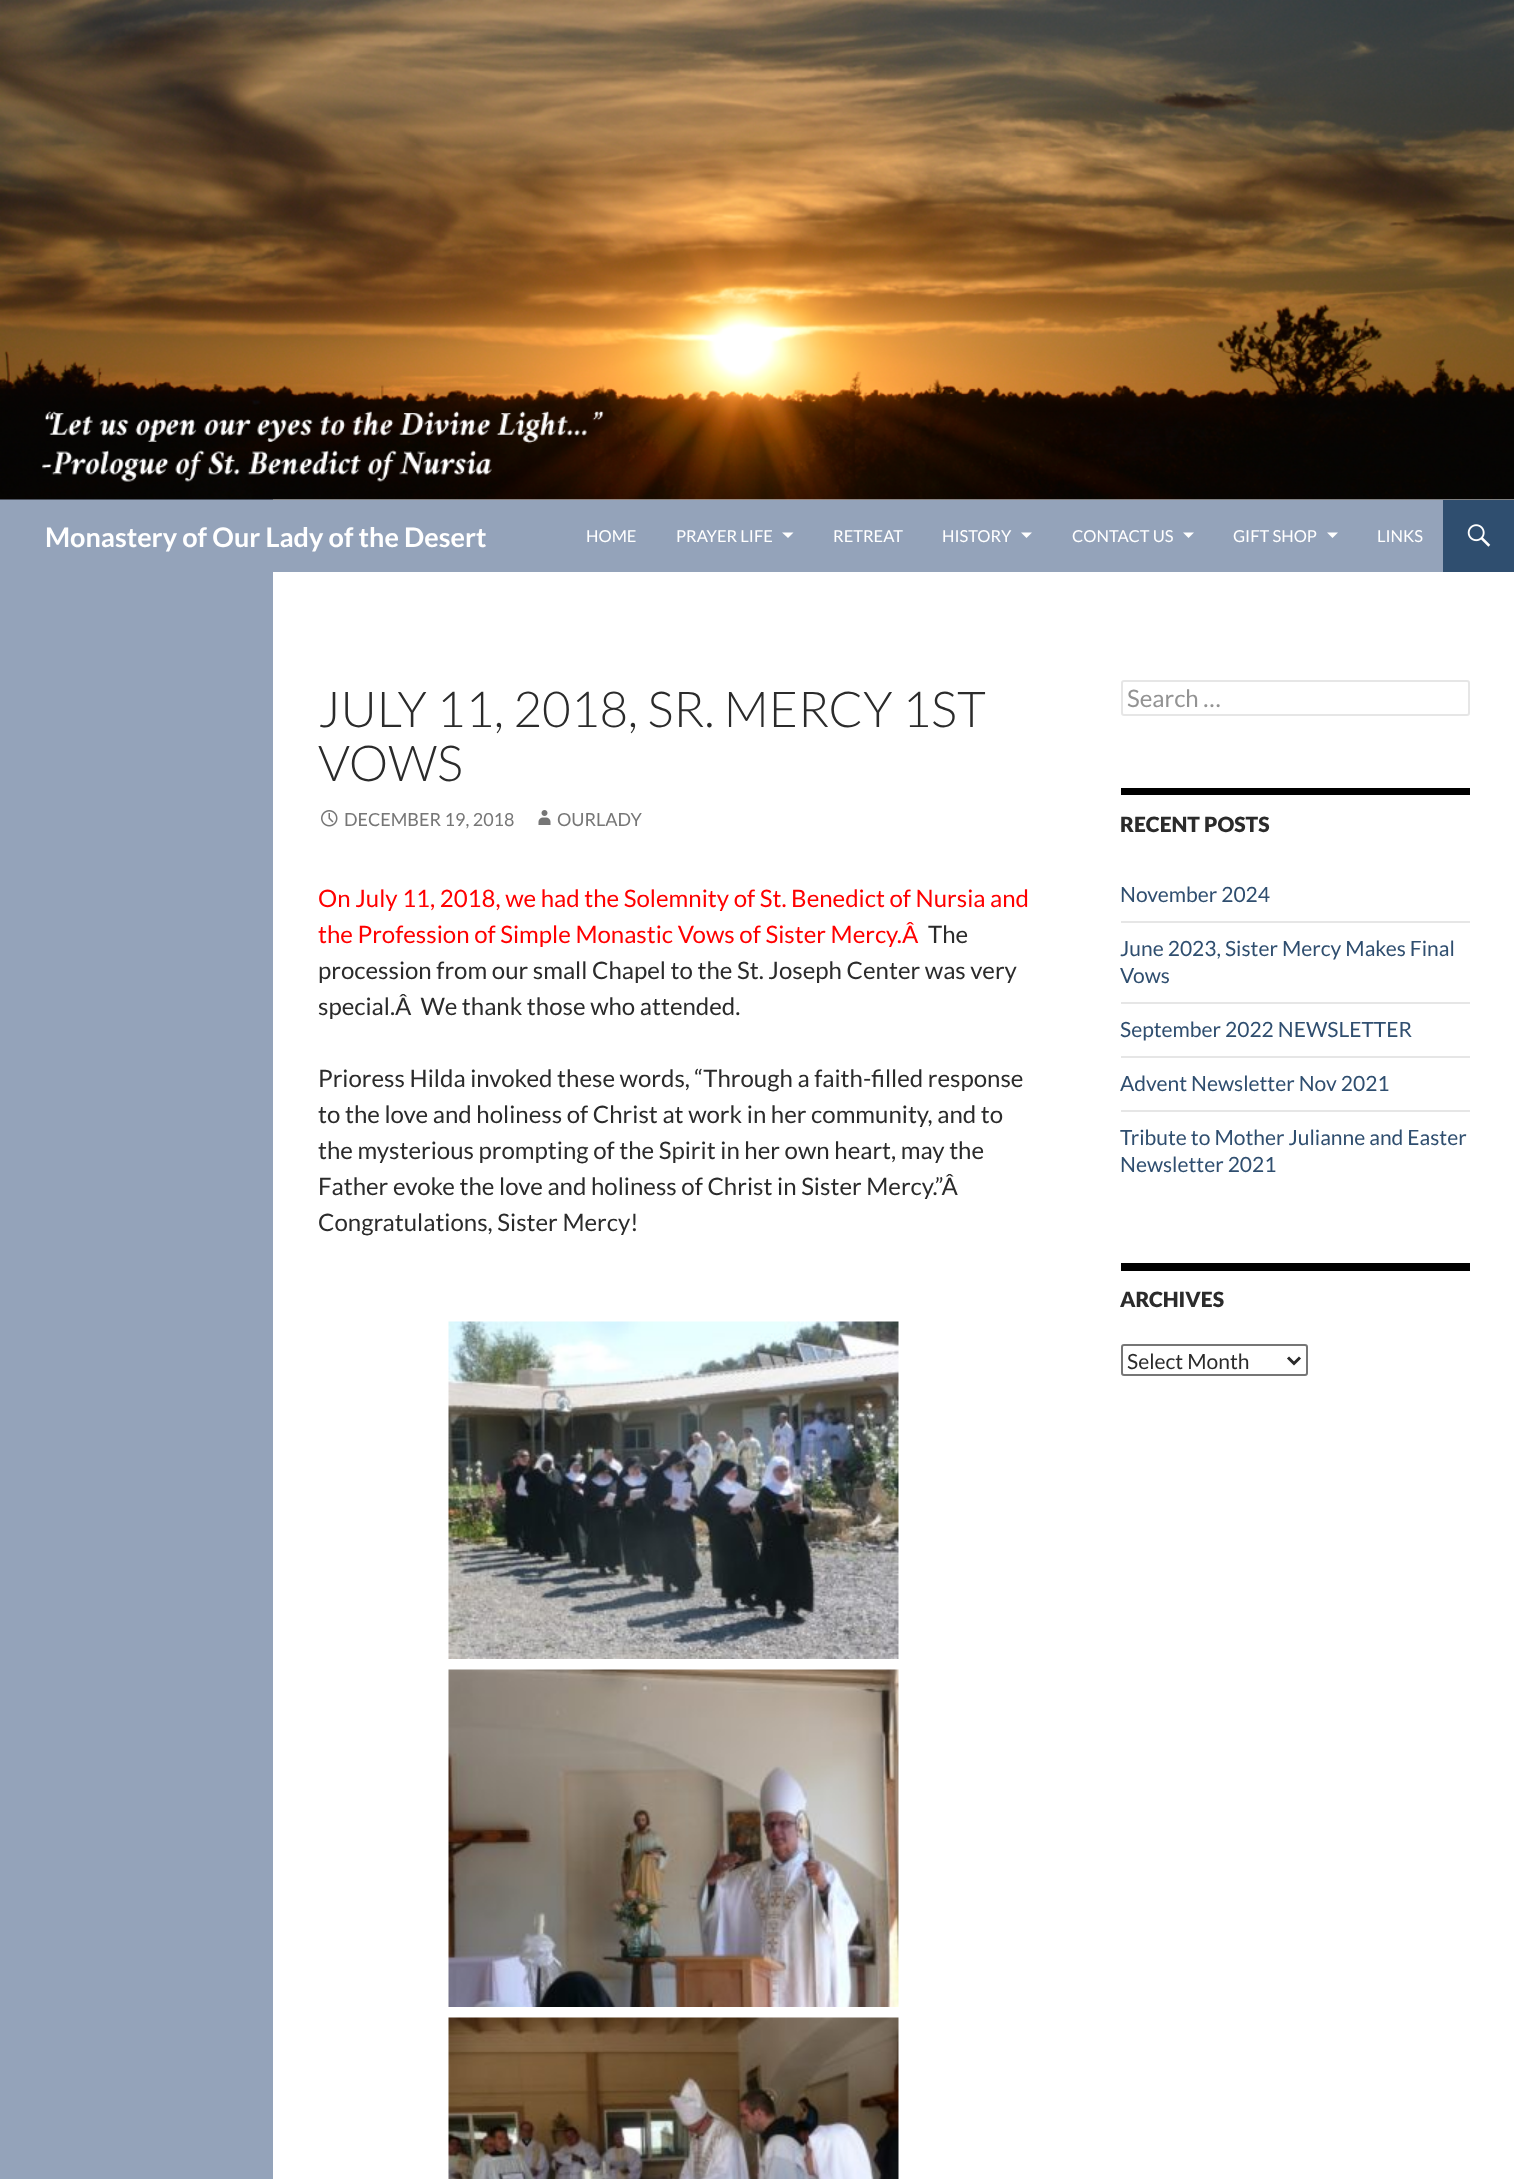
<!DOCTYPE html>
<meta charset="utf-8">
<style>body { margin: 0 } canvas { display: block }</style>
<canvas id="canvas" width="1514" height="2179"></canvas>
<img id="img1" src="images/1.png" hidden>
<img id="img2" src="images/2.png" hidden>
<img id="img3" src="images/3.png" hidden>
<img id="img4" src="images/4.png" hidden>
<img id="img5" src="images/5.png" hidden>
<img id="img6" src="images/6.png" hidden>
<img id="img7" src="images/7.png" hidden>
<script>
window.onload = function () {
    const canvas = document.getElementById('canvas');
    const context = canvas.getContext('2d');
    context.miterLimit = 4;
    context.fontKerning = 'normal';

    context.fillStyle = 'rgb(255, 255, 255)';
    context.fillRect(0, 0, 1514, 2179);
    context.fillStyle = 'rgb(148, 163, 186)';
    context.fillRect(0, 499, 273, 1680);
    context.drawImage(document.getElementById('img1'), 0, 0, 1514, 500);
    context.fillRect(273, 500, 1170, 72);
    context.fillStyle = 'rgb(255, 255, 255)';
    context.beginPath();
    context.moveTo(782, 532.5);
    context.lineTo(788, 538);
    context.lineTo(793.5, 532.5);
    context.closePath();
    context.fill();
    context.beginPath();
    context.moveTo(1021, 532.5);
    context.lineTo(1026.5, 538);
    context.lineTo(1032, 532.5);
    context.closePath();
    context.fill();
    context.beginPath();
    context.moveTo(1183, 532.5);
    context.lineTo(1188.5, 538);
    context.lineTo(1194, 532.5);
    context.closePath();
    context.fill();
    context.beginPath();
    context.moveTo(1327, 532.5);
    context.lineTo(1332.5, 538);
    context.lineTo(1338, 532.5);
    context.closePath();
    context.fill();
    context.fillStyle = 'rgb(47, 78, 111)';
    context.fillRect(1443, 500, 71, 72);
    context.drawImage(document.getElementById('img2'), 1467, 524, 24, 23);
    context.drawImage(document.getElementById('img3'), 321, 810, 17, 17);
    context.drawImage(document.getElementById('img4'), 538, 810, 13, 15);
    context.drawImage(document.getElementById('img5'), 448, 1321, 451, 338);
    context.drawImage(document.getElementById('img6'), 448, 1669, 451, 338);
    context.drawImage(document.getElementById('img7'), 448, 2017, 451, 162);
    context.beginPath();
    context.roundRect(1122, 681, 347, 34, 2);
    context.strokeStyle = 'rgb(230, 230, 230)';
    context.lineWidth = 2;
    context.stroke();
    context.fillStyle = 'rgb(0, 0, 0)';
    context.fillRect(1121, 788, 349, 7);
    context.fillStyle = 'rgb(230, 230, 230)';
    context.fillRect(1121, 921, 349, 2);
    context.fillRect(1121, 1002, 349, 2);
    context.fillRect(1121, 1056, 349, 2);
    context.fillRect(1121, 1110, 349, 2);
    context.fillStyle = 'rgb(0, 0, 0)';
    context.fillRect(1121, 1263, 349, 8);
    context.beginPath();
    context.roundRect(1122, 1345, 185, 30, 2);
    context.strokeStyle = 'rgb(118, 118, 118)';
    context.stroke();
    context.beginPath();
    context.moveTo(1288, 1357.5);
    context.lineTo(1294, 1363.5);
    context.lineTo(1300, 1357.5);
    context.strokeStyle = 'rgb(43, 43, 43)';
    context.lineWidth = 3;
    context.stroke();
    context.font = 'bold 27px Lato';
    context.fillStyle = 'rgb(255, 255, 255)';
    context.fillText('Monastery of Our Lady of the Desert', 45, 547);
    context.font = '16.5px Lato';
    context.fillText('HOME', 586, 542);
    context.fillText('PRAYER LIFE', 676, 542);
    context.fillText('RETREAT', 833, 542);
    context.fillText('HISTORY', 942, 542);
    context.fillText('CONTACT US', 1072, 542);
    context.fillText('GIFT SHOP', 1233, 542);
    context.fillText('LINKS', 1377, 542);
    context.font = '300 49.5px Lato';
    context.fillStyle = 'rgb(43, 43, 43)';
    context.fillText('JULY 11, 2018, SR. MERCY 1ST', 318, 727);
    context.fillText('VOWS', 318, 781);
    context.font = '18px Lato';
    context.fillStyle = 'rgb(118, 118, 118)';
    context.fillText('DECEMBER 19, 2018', 344, 826);
    context.fillText('OURLADY', 557, 826);
    context.font = '24px Lato';
    context.fillStyle = 'rgb(255, 0, 0)';
    context.fillText('On July 11, 2018, we had the Solemnity of St. Benedict of Nursia and', 318, 907);
    context.fillText('the Profession of Simple Monastic Vows of Sister Mercy.Â', 318, 943);
    context.fillStyle = 'rgb(43, 43, 43)';
    context.fillText('The', 928, 943);
    context.fillText('procession from our small Chapel to the St. Joseph Center was very', 318, 979);
    context.fillText('special.Â  We thank those who attended.', 318, 1015);
    context.fillText('Prioress Hilda invoked these words, “Through a faith-filled response', 318, 1087);
    context.fillText('to the love and holiness of Christ at work in her community, and to', 318, 1123);
    context.fillText('the mysterious prompting of the Spirit in her own heart, may the', 318, 1159);
    context.fillText('Father evoke the love and holiness of Christ in Sister Mercy.”Â', 318, 1195);
    context.fillText('Congratulations, Sister Mercy!', 318, 1231);
    context.fillStyle = 'rgb(147, 147, 147)';
    context.fillText('Search …', 1127, 707);
    context.font = '900 21px Lato';
    context.fillStyle = 'rgb(43, 43, 43)';
    context.fillText('RECENT POSTS', 1120, 832);
    context.font = '21px Lato';
    context.fillStyle = 'rgb(47, 78, 111)';
    context.fillText('November 2024', 1120, 902);
    context.fillText('June 2023, Sister Mercy Makes Final', 1120, 956);
    context.fillText('Vows', 1120, 983);
    context.fillText('September 2022 NEWSLETTER', 1120, 1037);
    context.fillText('Advent Newsletter Nov 2021', 1120, 1091);
    context.fillText('Tribute to Mother Julianne and Easter', 1120, 1145);
    context.fillText('Newsletter 2021', 1120, 1172);
    context.font = '900 21px Lato';
    context.fillStyle = 'rgb(43, 43, 43)';
    context.fillText('ARCHIVES', 1120, 1307);
    context.font = '21px Lato';
    context.fillText('Select Month', 1127, 1369);
};
</script>
